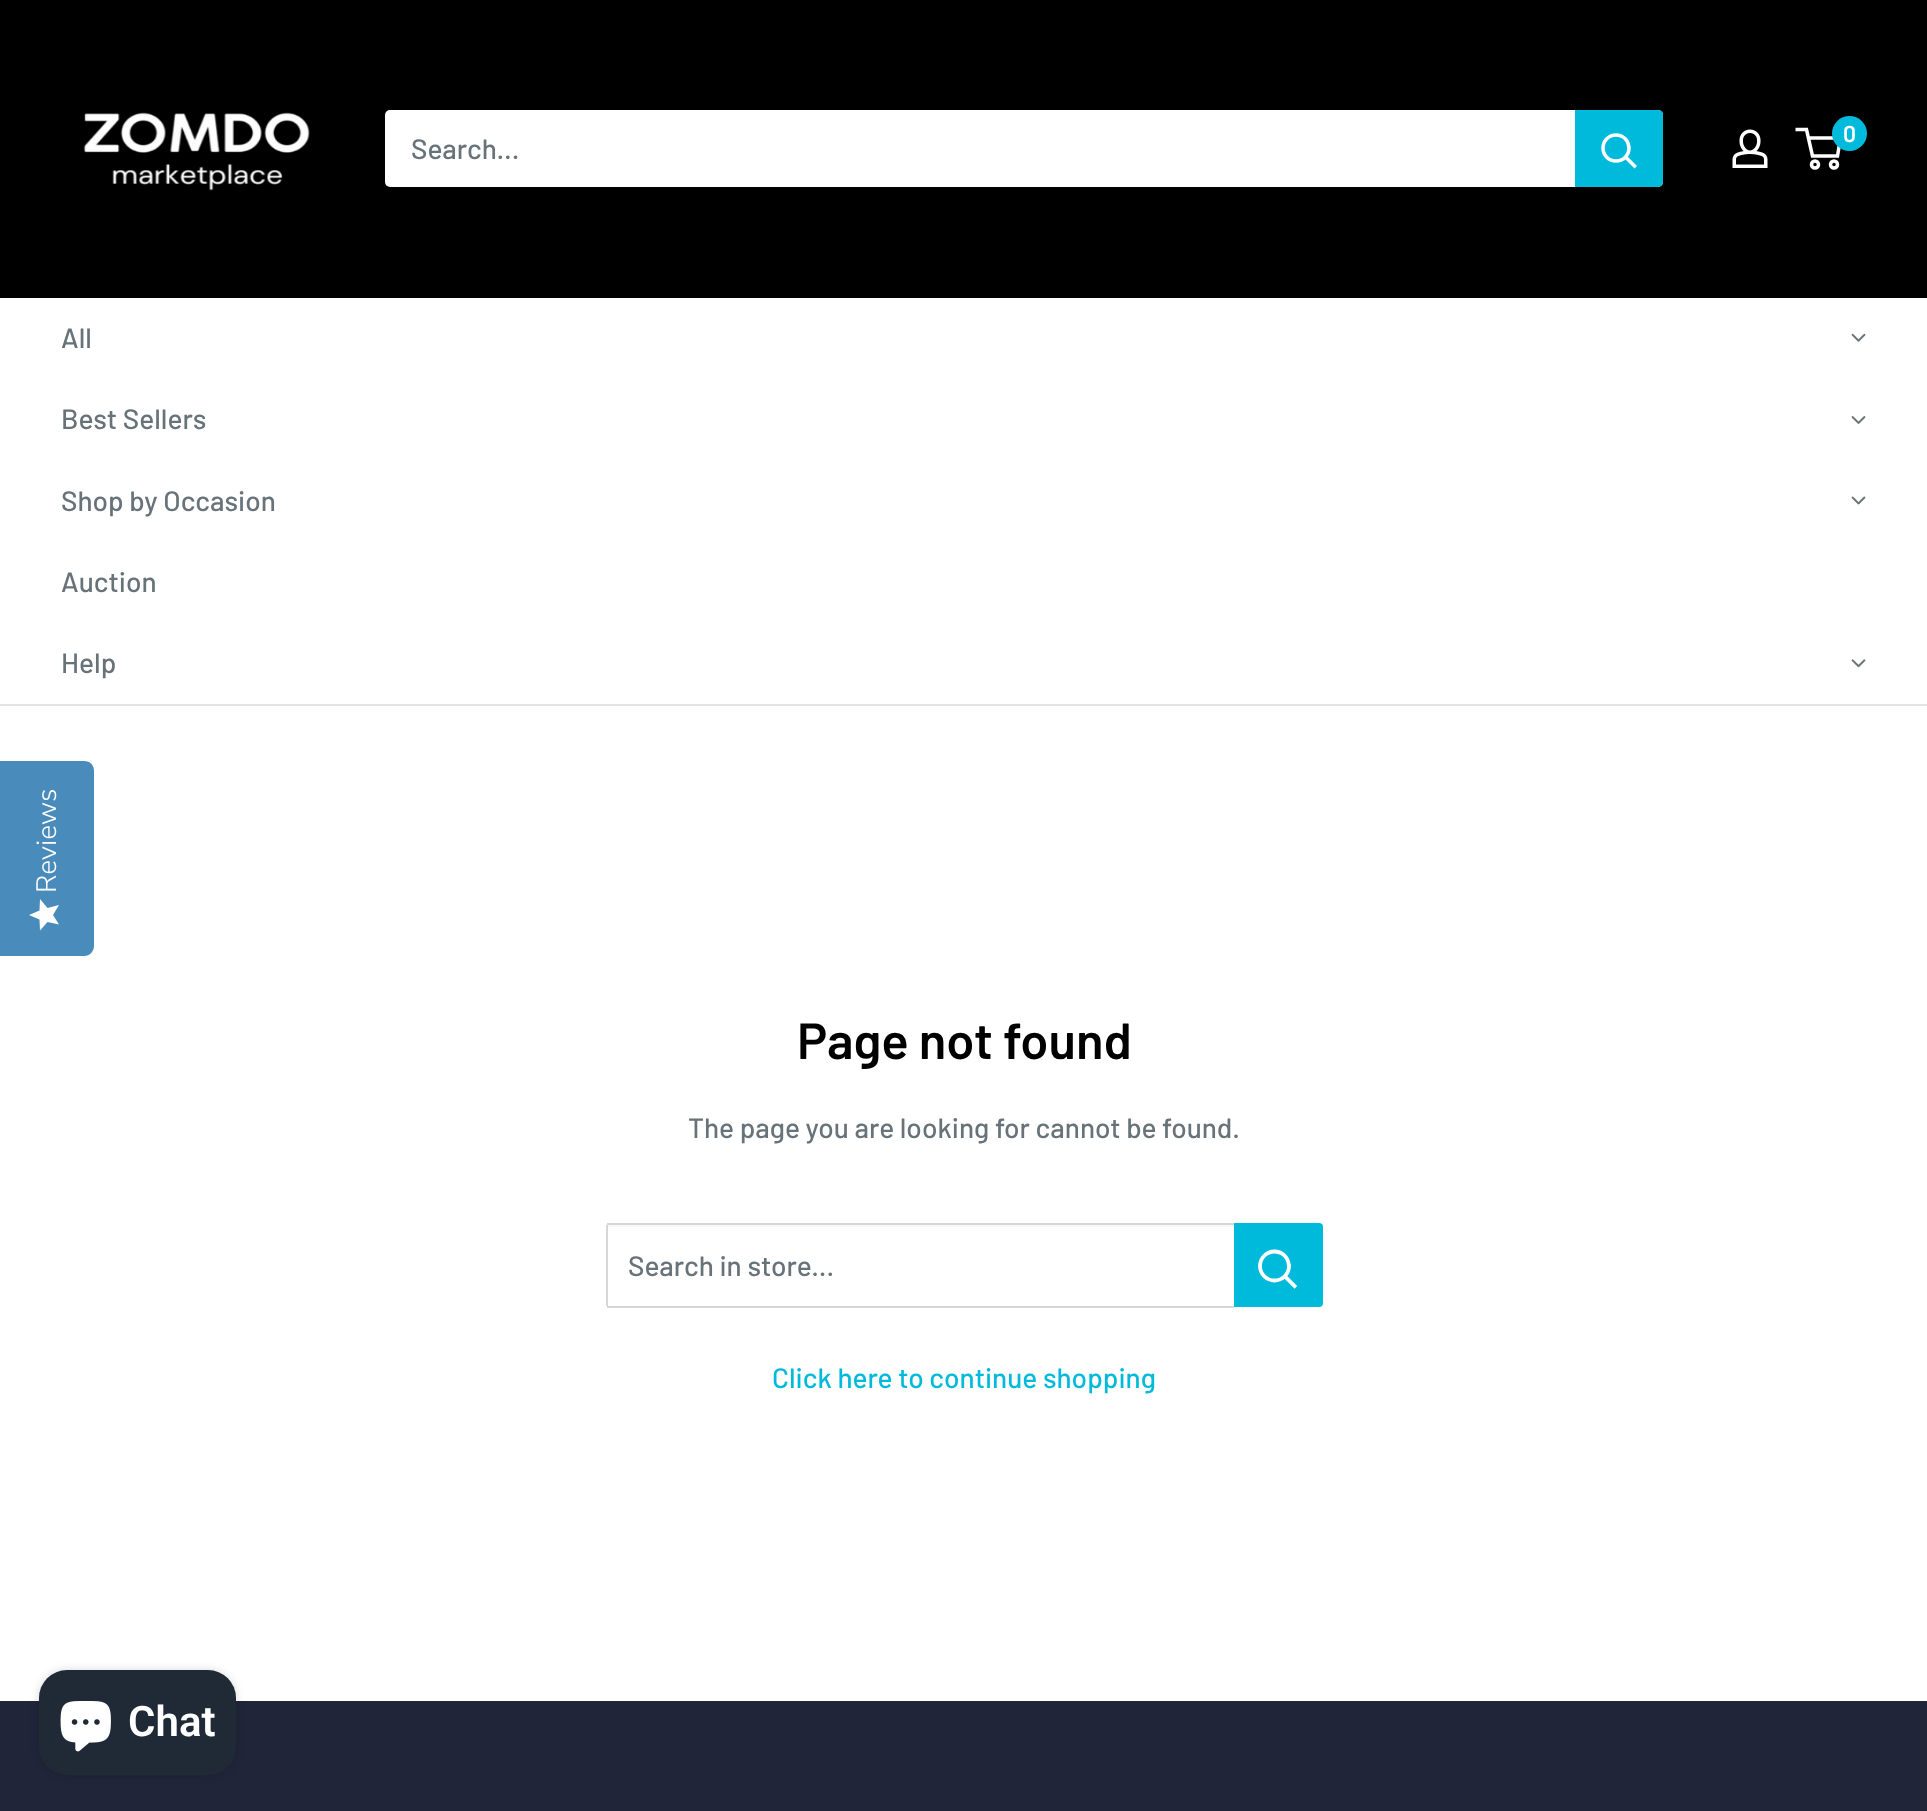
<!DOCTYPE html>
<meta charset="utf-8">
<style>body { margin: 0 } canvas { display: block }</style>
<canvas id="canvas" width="1927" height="1811"></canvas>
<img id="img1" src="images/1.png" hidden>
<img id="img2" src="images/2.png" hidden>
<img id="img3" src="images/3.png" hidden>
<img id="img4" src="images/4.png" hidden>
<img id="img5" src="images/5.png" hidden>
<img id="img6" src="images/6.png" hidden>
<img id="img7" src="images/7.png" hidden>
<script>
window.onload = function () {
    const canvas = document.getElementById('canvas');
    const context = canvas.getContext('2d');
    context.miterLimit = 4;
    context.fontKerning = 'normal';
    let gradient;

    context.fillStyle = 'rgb(255, 255, 255)';
    context.fillRect(0, 0, 1927, 1811);
    context.fillStyle = 'rgb(0, 0, 0)';
    context.fillRect(0, 0, 1927, 298);
    context.drawImage(document.getElementById('img1'), 83, 112, 227, 79);
    context.drawImage(document.getElementById('img2'), 1732, 129, 36, 39);
    context.beginPath();
    context.arc(1815, 164.5, 3.5, 0, 2 * Math.PI);
    context.strokeStyle = 'rgb(255, 255, 255)';
    context.lineWidth = 3.5;
    context.stroke();
    context.beginPath();
    context.arc(1834, 164.5, 3.5, 0, 2 * Math.PI);
    context.stroke();
    context.beginPath();
    context.moveTo(1808.5, 138);
    context.lineTo(1840.5, 138);
    context.lineTo(1837.5, 156);
    context.lineTo(1812.5, 156);
    context.lineTo(1806.5, 129.5);
    context.lineTo(1795.5, 129.5);
    context.stroke();
    context.fillStyle = 'rgb(0, 186, 219)';
    context.beginPath();
    context.arc(1849.5, 133.5, 17.5, 0, 2 * Math.PI);
    context.fill();
    context.fillStyle = 'rgb(255, 255, 255)';
    context.beginPath();
    context.roundRect(385, 110, 1278, 77, 5);
    context.fill();
    context.fillStyle = 'rgb(0, 186, 219)';
    context.beginPath();
    context.roundRect(1575, 110, 88, 77, [0, 5, 5, 0]);
    context.fill();
    context.beginPath();
    context.moveTo(1634.5, 166);
    context.lineTo(1626, 157.5);
    context.lineCap = 'square';
    context.stroke();
    context.beginPath();
    context.arc(1616, 148, 13, 0, 2 * Math.PI);
    context.stroke();
    context.fillStyle = 'rgb(225, 227, 228)';
    context.fillRect(0, 704, 1927, 2);
    context.drawImage(document.getElementById('img3'), 1851, 333, 15, 9);
    context.drawImage(document.getElementById('img4'), 1851, 416, 15, 8);
    context.drawImage(document.getElementById('img5'), 1851, 496, 15, 9);
    context.drawImage(document.getElementById('img6'), 1851, 659, 15, 9);
    context.fillStyle = 'rgb(73, 140, 188)';
    context.beginPath();
    context.moveTo(0, 956);
    context.lineTo(0, 761);
    context.lineTo(84, 761);
    context.bezierCurveTo(90, 761, 94, 765, 94, 771);
    context.lineTo(94, 946);
    context.bezierCurveTo(94, 951, 90, 956, 84, 956);
    context.closePath();
    context.fill();
    gradient = context.createLinearGradient(29, 931, 29, 899);
    gradient.addColorStop(1, 'rgb(254, 254, 254)');
    gradient.addColorStop(1, 'rgb(234, 234, 234)');
    context.fillStyle = gradient;
    context.beginPath();
    context.moveTo(53, 915);
    context.lineTo(59, 905);
    context.lineTo(47.5, 908);
    context.lineTo(40, 899);
    context.lineTo(39.5, 910.5);
    context.lineTo(29, 915);
    context.lineTo(39.5, 919.5);
    context.lineTo(40, 930.5);
    context.lineTo(47.5, 922);
    context.lineTo(59, 924.5);
    context.closePath();
    context.fill();
    context.fillStyle = 'rgb(248, 248, 248)';
    context.beginPath();
    context.moveTo(609, 1227);
    context.lineTo(1234, 1227);
    context.lineTo(1234, 1225);
    context.lineTo(609, 1225);
    context.bezierCurveTo(607, 1225, 607, 1227, 607, 1229);
    context.bezierCurveTo(607, 1228, 608, 1227, 609, 1227);
    context.closePath();
    context.fill();
    context.fillStyle = 'rgb(212, 214, 216)';
    context.fillRect(607, 1223, 627, 2);
    context.fillRect(607, 1306, 627, 2);
    context.fillRect(606, 1225, 2, 81);
    context.fillStyle = 'rgb(0, 186, 219)';
    context.beginPath();
    context.roundRect(1234, 1223, 89, 84, [0, 4, 4, 0]);
    context.fill();
    context.beginPath();
    context.moveTo(1294.5, 1286);
    context.lineTo(1285, 1276.5);
    context.lineWidth = 3.8;
    context.stroke();
    context.beginPath();
    context.arc(1274.5, 1266, 14.5, 0, 2 * Math.PI);
    context.stroke();
    context.fillStyle = 'rgb(33, 37, 57)';
    context.fillRect(0, 1701, 1927, 110);
    context.fillStyle = 'rgba(0, 0, 0, 0.15)';
    context.filter = 'blur(4.5px)';
    context.beginPath();
    context.roundRect(39, 1670, 197, 105, 28);
    context.fill();
    context.filter = 'none';
    context.fillStyle = 'rgb(32, 42, 54)';
    context.beginPath();
    context.roundRect(39, 1670, 197, 105, 28);
    context.fill();
    context.drawImage(document.getElementById('img7'), 60, 1701, 51, 51);
    context.font = '600 23px Barlow';
    context.fillStyle = 'rgb(255, 255, 255)';
    context.fillText('0', 1843, 142);
    context.font = '500 28px Barlow';
    context.fillStyle = 'rgb(103, 114, 121)';
    context.fillText('Search...', 411, 159);
    context.fillText('All', 61, 348);
    context.fillText('Best Sellers', 61, 429);
    context.fillText('Shop by Occasion', 61, 511);
    context.fillText('Auction', 61, 592);
    context.fillText('Help', 61, 673);
    context.font = '300 28px Nunito Sans';
    context.fillStyle = 'rgb(255, 255, 255)';
    context.save();
    context.translate(56, 893);
    context.rotate(-90 * Math.PI / 180);
    context.fillText('Reviews', 0, 0);
    context.restore();
    context.font = '600 50.75px Barlow';
    context.fillStyle = 'rgb(0, 0, 0)';
    context.fillText('Page not found', 797, 1059);
    context.font = '500 28px Barlow';
    context.fillStyle = 'rgb(103, 114, 121)';
    context.fillText('The page you are looking for cannot be found.', 688, 1138);
    context.fillText('Search in store...', 628, 1276);
    context.fillStyle = 'rgb(0, 186, 219)';
    context.fillText('Click here to continue shopping', 772, 1388);
    context.font = '600 42px Roboto';
    context.fillStyle = 'rgb(255, 255, 255)';
    context.fillText('Chat', 128, 1736);
};
</script>
